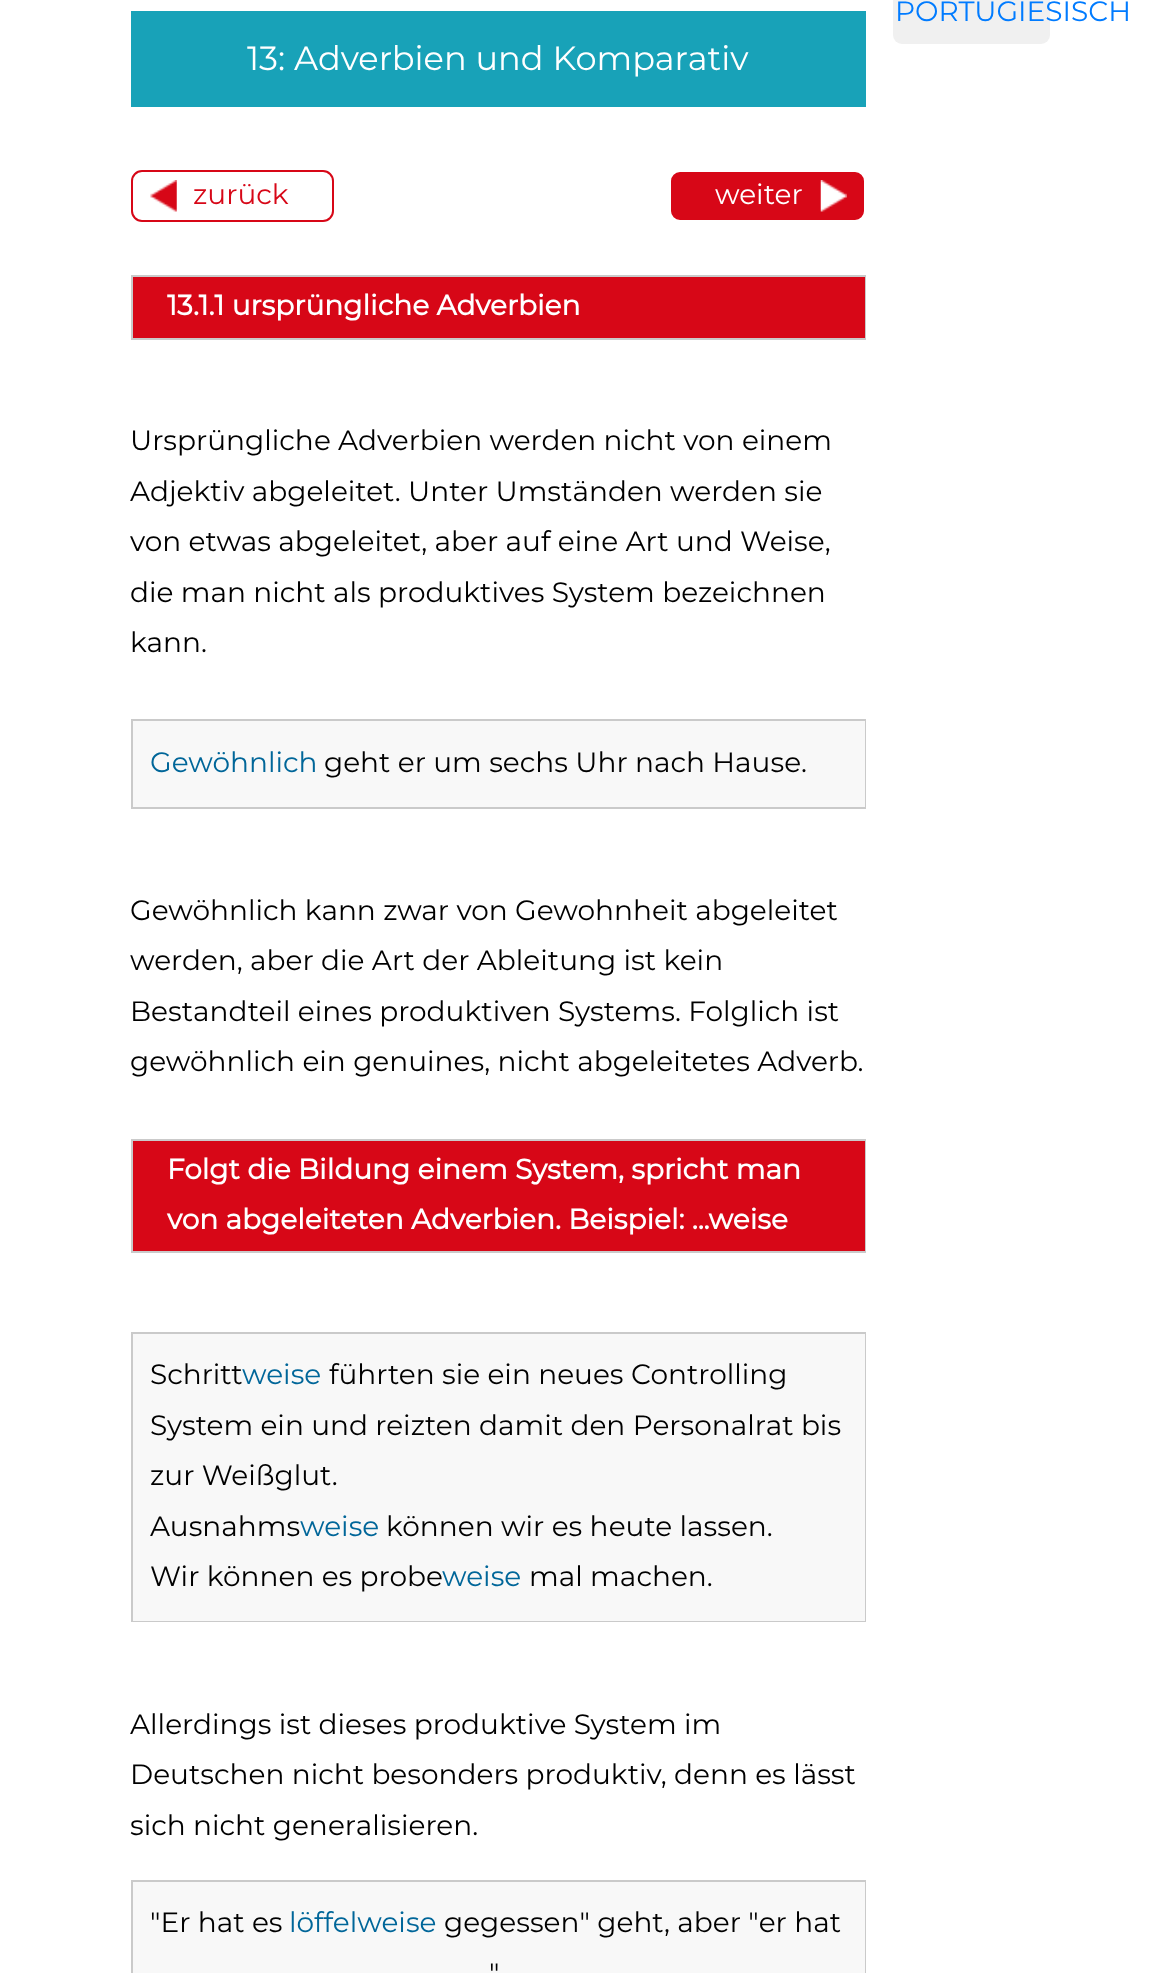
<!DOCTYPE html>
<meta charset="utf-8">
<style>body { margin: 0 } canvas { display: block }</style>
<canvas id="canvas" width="1152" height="1973"></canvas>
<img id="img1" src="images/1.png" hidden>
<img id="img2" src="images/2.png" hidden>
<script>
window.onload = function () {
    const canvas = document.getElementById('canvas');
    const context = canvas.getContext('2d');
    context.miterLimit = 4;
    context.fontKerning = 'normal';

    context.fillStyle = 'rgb(255, 255, 255)';
    context.fillRect(0, 0, 1152, 1973);
    context.fillStyle = 'rgb(240, 240, 240)';
    context.beginPath();
    context.roundRect(893, -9, 157, 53, 9);
    context.fill();
    context.fillStyle = 'rgb(24, 162, 184)';
    context.fillRect(131, 11, 735, 96);
    context.beginPath();
    context.roundRect(132, 171, 201, 50, 10);
    context.strokeStyle = 'rgb(215, 7, 23)';
    context.lineWidth = 2;
    context.stroke();
    context.drawImage(document.getElementById('img1'), 150, 180, 27, 32);
    context.fillStyle = 'rgb(215, 7, 23)';
    context.beginPath();
    context.roundRect(670, 171, 195, 50, 10);
    context.fill();
    context.strokeStyle = 'rgb(255, 255, 255)';
    context.stroke();
    context.drawImage(document.getElementById('img2'), 820, 180, 27, 32);
    context.fillStyle = 'rgb(202, 202, 202)';
    context.fillRect(131, 275, 735, 2);
    context.fillRect(865, 275, 1, 65);
    context.fillRect(131, 338, 735, 2);
    context.fillRect(131, 275, 2, 65);
    context.fillStyle = 'rgb(215, 7, 23)';
    context.fillRect(133, 277, 732, 61);
    context.fillStyle = 'rgb(202, 202, 202)';
    context.fillRect(131, 719, 735, 2);
    context.fillRect(865, 719, 1, 90);
    context.fillRect(131, 807, 735, 2);
    context.fillRect(131, 719, 2, 90);
    context.fillStyle = 'rgb(248, 248, 248)';
    context.fillRect(133, 721, 732, 86);
    context.fillStyle = 'rgb(202, 202, 202)';
    context.fillRect(131, 1139, 735, 2);
    context.fillRect(865, 1139, 1, 114);
    context.fillRect(131, 1251, 735, 2);
    context.fillRect(131, 1139, 2, 114);
    context.fillStyle = 'rgb(215, 7, 23)';
    context.fillRect(133, 1141, 732, 110);
    context.fillStyle = 'rgb(202, 202, 202)';
    context.fillRect(131, 1332, 735, 2);
    context.fillRect(865, 1332, 1, 290);
    context.fillRect(131, 1621, 735, 1);
    context.fillRect(131, 1332, 2, 290);
    context.fillStyle = 'rgb(248, 248, 248)';
    context.fillRect(133, 1334, 732, 287);
    context.fillStyle = 'rgb(202, 202, 202)';
    context.fillRect(131, 1880, 735, 2);
    context.fillRect(865, 1880, 1, 93);
    context.fillRect(131, 1880, 2, 93);
    context.fillStyle = 'rgb(248, 248, 248)';
    context.fillRect(133, 1882, 732, 91);
    context.font = '28px Montserrat';
    context.fillStyle = 'rgb(0, 123, 255)';
    context.fillText('PORTUGIESISCH', 895, 21);
    context.font = '33.6px Montserrat';
    context.fillStyle = 'rgb(255, 255, 255)';
    context.fillText('13: Adverbien und Komparativ', 247, 70);
    context.font = '28px Montserrat';
    context.fillStyle = 'rgb(215, 7, 23)';
    context.fillText('zurück', 193, 204);
    context.fillStyle = 'rgb(255, 255, 255)';
    context.fillText('weiter', 715, 204);
    context.font = 'bold 28px Montserrat';
    context.fillText('13.1.1 ursprüngliche Adverbien', 167, 315);
    context.font = '28px Montserrat';
    context.fillStyle = 'rgb(0, 0, 0)';
    context.fillText('Ursprüngliche Adverbien werden nicht von einem', 130, 450);
    context.fillText('Adjektiv abgeleitet. Unter Umständen werden sie', 130, 501);
    context.fillText('von etwas abgeleitet, aber auf eine Art und Weise,', 130, 551);
    context.fillText('die man nicht als produktives System bezeichnen', 130, 602);
    context.fillText('kann.', 130, 652);
    context.fillStyle = 'rgb(0, 102, 153)';
    context.fillText('Gewöhnlich', 150, 772);
    context.fillStyle = 'rgb(0, 0, 0)';
    context.fillText('geht er um sechs Uhr nach Hause.', 324, 772);
    context.fillText('Gewöhnlich kann zwar von Gewohnheit abgeleitet', 130, 920);
    context.fillText('werden, aber die Art der Ableitung ist kein', 130, 970);
    context.fillText('Bestandteil eines produktiven Systems. Folglich ist', 130, 1021);
    context.fillText('gewöhnlich ein genuines, nicht abgeleitetes Adverb.', 130, 1071);
    context.font = 'bold 28px Montserrat';
    context.fillStyle = 'rgb(255, 255, 255)';
    context.fillText('Folgt die Bildung einem System, spricht man', 167, 1179);
    context.fillText('von abgeleiteten Adverbien. Beispiel: ...weise', 167, 1229);
    context.font = '28px Montserrat';
    context.fillStyle = 'rgb(0, 0, 0)';
    context.fillText('Schritt', 150, 1384);
    context.fillStyle = 'rgb(0, 102, 153)';
    context.fillText('weise', 242, 1384);
    context.fillStyle = 'rgb(0, 0, 0)';
    context.fillText('führten sie ein neues Controlling', 329, 1384);
    context.fillText('System ein und reizten damit den Personalrat bis', 150, 1435);
    context.fillText('zur Weißglut.', 150, 1485);
    context.fillText('Ausnahms', 150, 1536);
    context.fillStyle = 'rgb(0, 102, 153)';
    context.fillText('weise', 300, 1536);
    context.fillStyle = 'rgb(0, 0, 0)';
    context.fillText('können wir es heute lassen.', 386, 1536);
    context.fillText('Wir können es probe', 150, 1586);
    context.fillStyle = 'rgb(0, 102, 153)';
    context.fillText('weise', 442, 1586);
    context.fillStyle = 'rgb(0, 0, 0)';
    context.fillText('mal machen.', 529, 1586);
    context.fillText('Allerdings ist dieses produktive System im', 130, 1734);
    context.fillText('Deutschen nicht besonders produktiv, denn es lässt', 130, 1784);
    context.fillText('sich nicht generalisieren.', 130, 1835);
    context.fillText('"Er hat es', 150, 1932);
    context.fillStyle = 'rgb(0, 102, 153)';
    context.fillText('löffelweise', 289, 1932);
    context.fillStyle = 'rgb(0, 0, 0)';
    context.fillText('gegessen" geht, aber "er hat', 444, 1932);
    context.fillText('"', 489, 1983);
};
</script>
